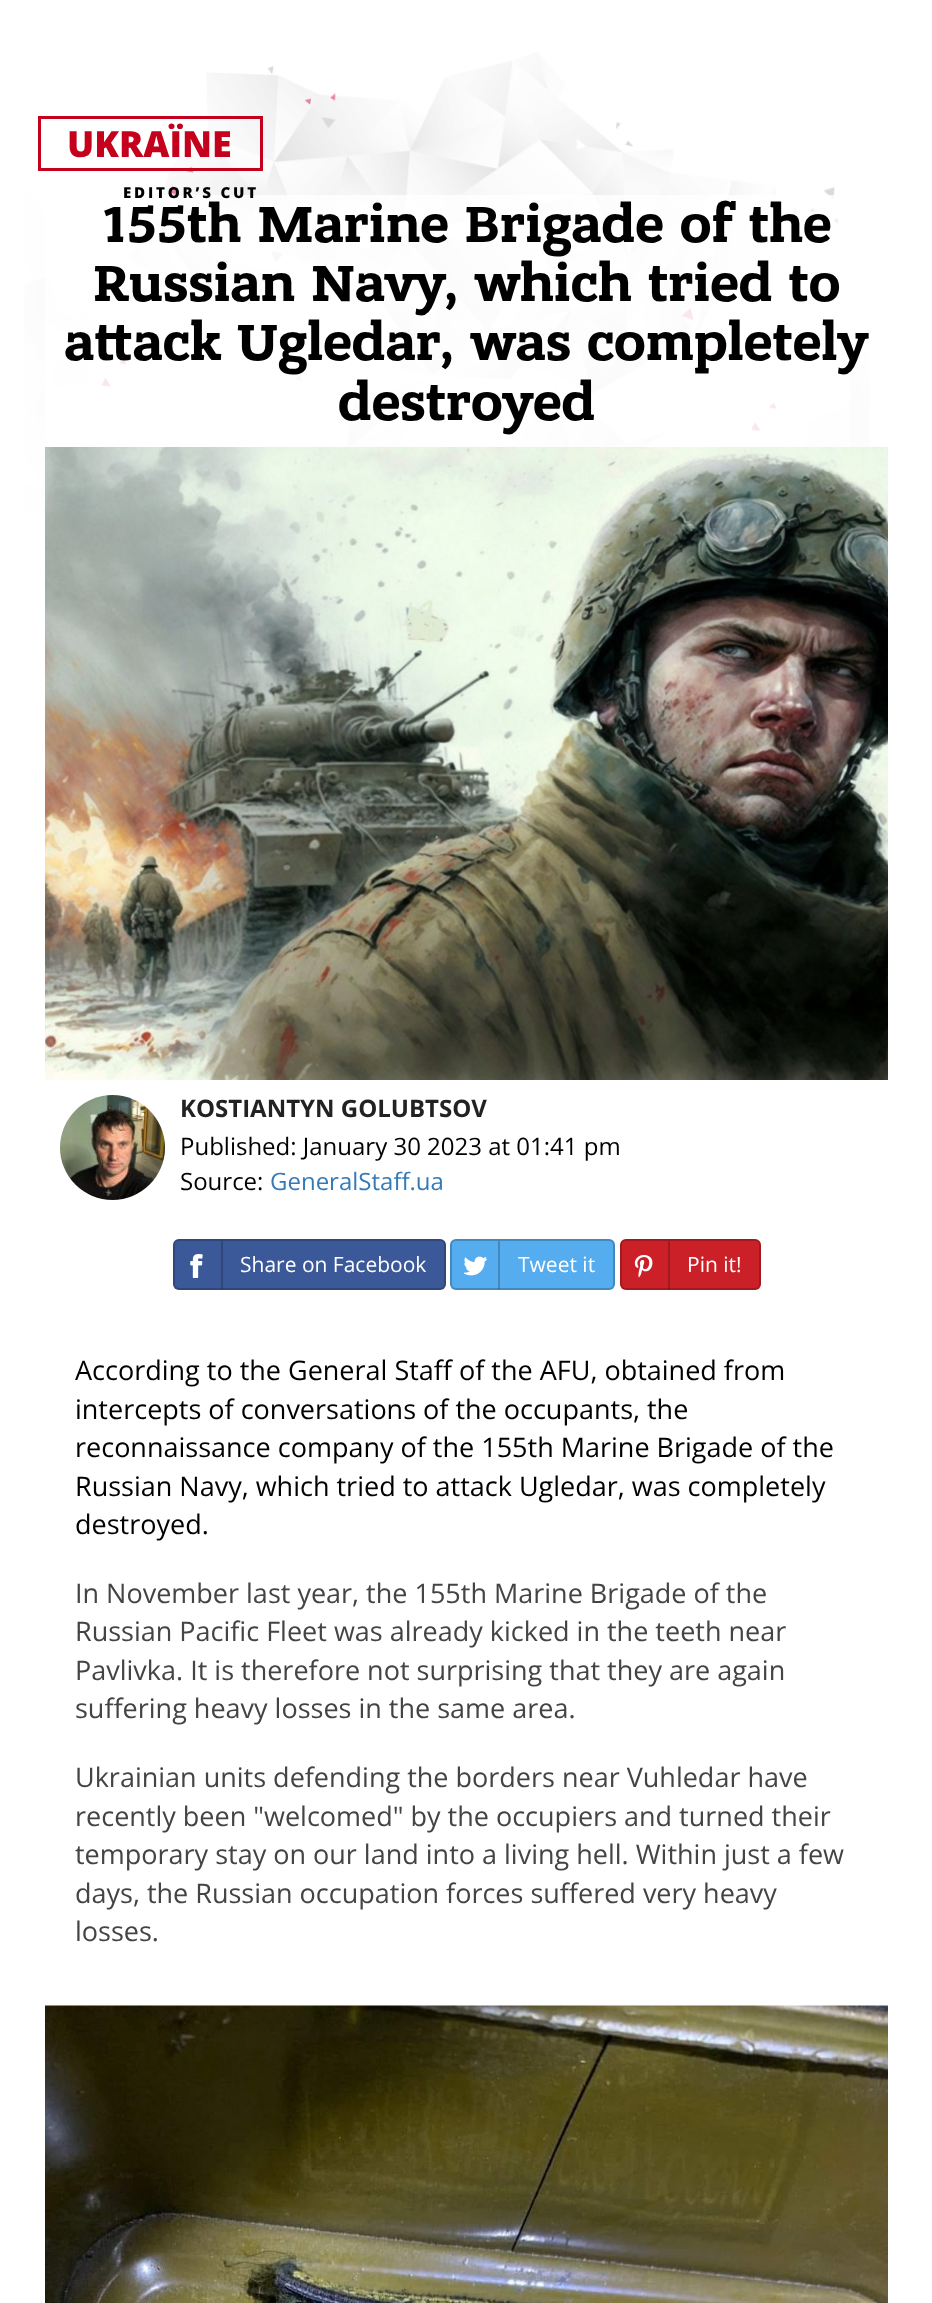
<!DOCTYPE html>
<meta charset="utf-8">
<style>body { margin: 0 } canvas { display: block }</style>
<canvas id="canvas" width="932" height="2303"></canvas>
<img id="img1" src="images/1.png" hidden>
<img id="img2" src="images/2.png" hidden>
<img id="img3" src="images/3.png" hidden>
<img id="img4" src="images/4.png" hidden>
<img id="img5" src="images/5.png" hidden>
<img id="img6" src="images/6.png" hidden>
<img id="img7" src="images/7.png" hidden>
<script>
window.onload = function () {
    const canvas = document.getElementById('canvas');
    const context = canvas.getContext('2d');
    context.miterLimit = 4;
    context.fontKerning = 'normal';

    context.fillStyle = 'rgb(255, 255, 255)';
    context.fillRect(0, 0, 932, 2303);
    context.drawImage(document.getElementById('img1'), 24, 52, 846, 461);
    context.strokeStyle = 'rgb(197, 0, 28)';
    context.lineWidth = 3;
    context.strokeRect(39.5, 117.5, 222, 52);
    context.fillStyle = 'rgba(255, 255, 255, 0.8)';
    context.fillRect(45, 195, 805, 298);
    context.drawImage(document.getElementById('img2'), 45, 447, 843, 633);
    context.drawImage(document.getElementById('img3'), 60, 1095, 105, 105);
    context.fillStyle = 'rgb(59, 89, 152)';
    context.beginPath();
    context.roundRect(173, 1239, 273, 51, 6);
    context.fill();
    context.beginPath();
    context.roundRect(174, 1240, 271, 49, 5);
    context.strokeStyle = 'rgba(0, 0, 0, 0.2)';
    context.lineWidth = 2;
    context.stroke();
    context.fillStyle = 'rgba(0, 0, 0, 0.2)';
    context.fillRect(221, 1241, 2, 48);
    context.drawImage(document.getElementById('img4'), 190, 1254, 13, 24);
    context.fillStyle = 'rgb(85, 172, 238)';
    context.beginPath();
    context.roundRect(450, 1239, 165, 51, 6);
    context.fill();
    context.beginPath();
    context.roundRect(451, 1240, 163, 49, 5);
    context.stroke();
    context.fillStyle = 'rgba(0, 0, 0, 0.2)';
    context.fillRect(498, 1241, 2, 48);
    context.drawImage(document.getElementById('img5'), 464, 1256, 23, 20);
    context.fillStyle = 'rgb(203, 32, 39)';
    context.beginPath();
    context.roundRect(620, 1239, 141, 51, 6);
    context.fill();
    context.beginPath();
    context.roundRect(621, 1240, 139, 49, 5);
    context.stroke();
    context.fillStyle = 'rgba(0, 0, 0, 0.2)';
    context.fillRect(668, 1241, 2, 48);
    context.drawImage(document.getElementById('img6'), 634, 1255, 19, 23);
    context.drawImage(document.getElementById('img7'), 45, 2005, 843, 298);
    context.font = '800 36px Open Sans';
    context.fillStyle = 'rgb(197, 0, 28)';
    context.fillText('UKRAЇNE', 67, 157);
    context.letterSpacing = '2.8px';
    context.font = '800 15.1px Open Sans';
    context.fillStyle = 'rgb(0, 0, 0)';
    context.fillText('EDITOR’S CUT', 123, 198);
    context.letterSpacing = '0px';
    context.font = 'bold 54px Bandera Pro';
    context.fillText('155th Marine Brigade of the', 102, 242);
    context.fillText('Russian Navy, which tried to', 93, 301);
    context.fillText('attack Ugledar, was completely', 64, 360);
    context.fillText('destroyed', 338, 420);
    context.font = 'bold 24px Open Sans';
    context.fillStyle = 'rgb(34, 34, 34)';
    context.fillText('KOSTIANTYN GOLUBTSOV', 180, 1117);
    context.font = '24px Open Sans';
    context.fillStyle = 'rgb(0, 0, 0)';
    context.fillText('Published: January 30 2023 at 01:41 pm', 180, 1155);
    context.fillText('Source:', 180, 1190);
    context.fillStyle = 'rgb(51, 122, 183)';
    context.fillText('GeneralStaff.ua', 270, 1190);
    context.font = '21px Open Sans';
    context.fillStyle = 'rgb(255, 255, 255)';
    context.fillText('Share on Facebook', 240, 1272);
    context.fillText('Tweet it', 518, 1272);
    context.fillText('Pin it!', 687, 1272);
    context.font = '27px Open Sans';
    context.fillStyle = 'rgb(0, 0, 0)';
    context.fillText('According to the General Staff of the AFU, obtained from', 75, 1380);
    context.fillText('intercepts of conversations of the occupants, the', 75, 1419);
    context.fillText('reconnaissance company of the 155th Marine Brigade of the', 75, 1457);
    context.fillText('Russian Navy, which tried to attack Ugledar, was completely', 75, 1496);
    context.fillText('destroyed.', 75, 1534);
    context.fillStyle = 'rgb(68, 68, 68)';
    context.fillText('In November last year, the 155th Marine Brigade of the', 75, 1603);
    context.fillText('Russian Pacific Fleet was already kicked in the teeth near', 75, 1641);
    context.fillText('Pavlivka. It is therefore not surprising that they are again', 75, 1680);
    context.fillText('suffering heavy losses in the same area.', 75, 1718);
    context.fillText('Ukrainian units defending the borders near Vuhledar have', 75, 1787);
    context.fillText('recently been "welcomed" by the occupiers and turned their', 75, 1826);
    context.fillText('temporary stay on our land into a living hell. Within just a few', 75, 1864);
    context.fillText('days, the Russian occupation forces suffered very heavy', 75, 1903);
    context.fillText('losses.', 75, 1941);
};
</script>
